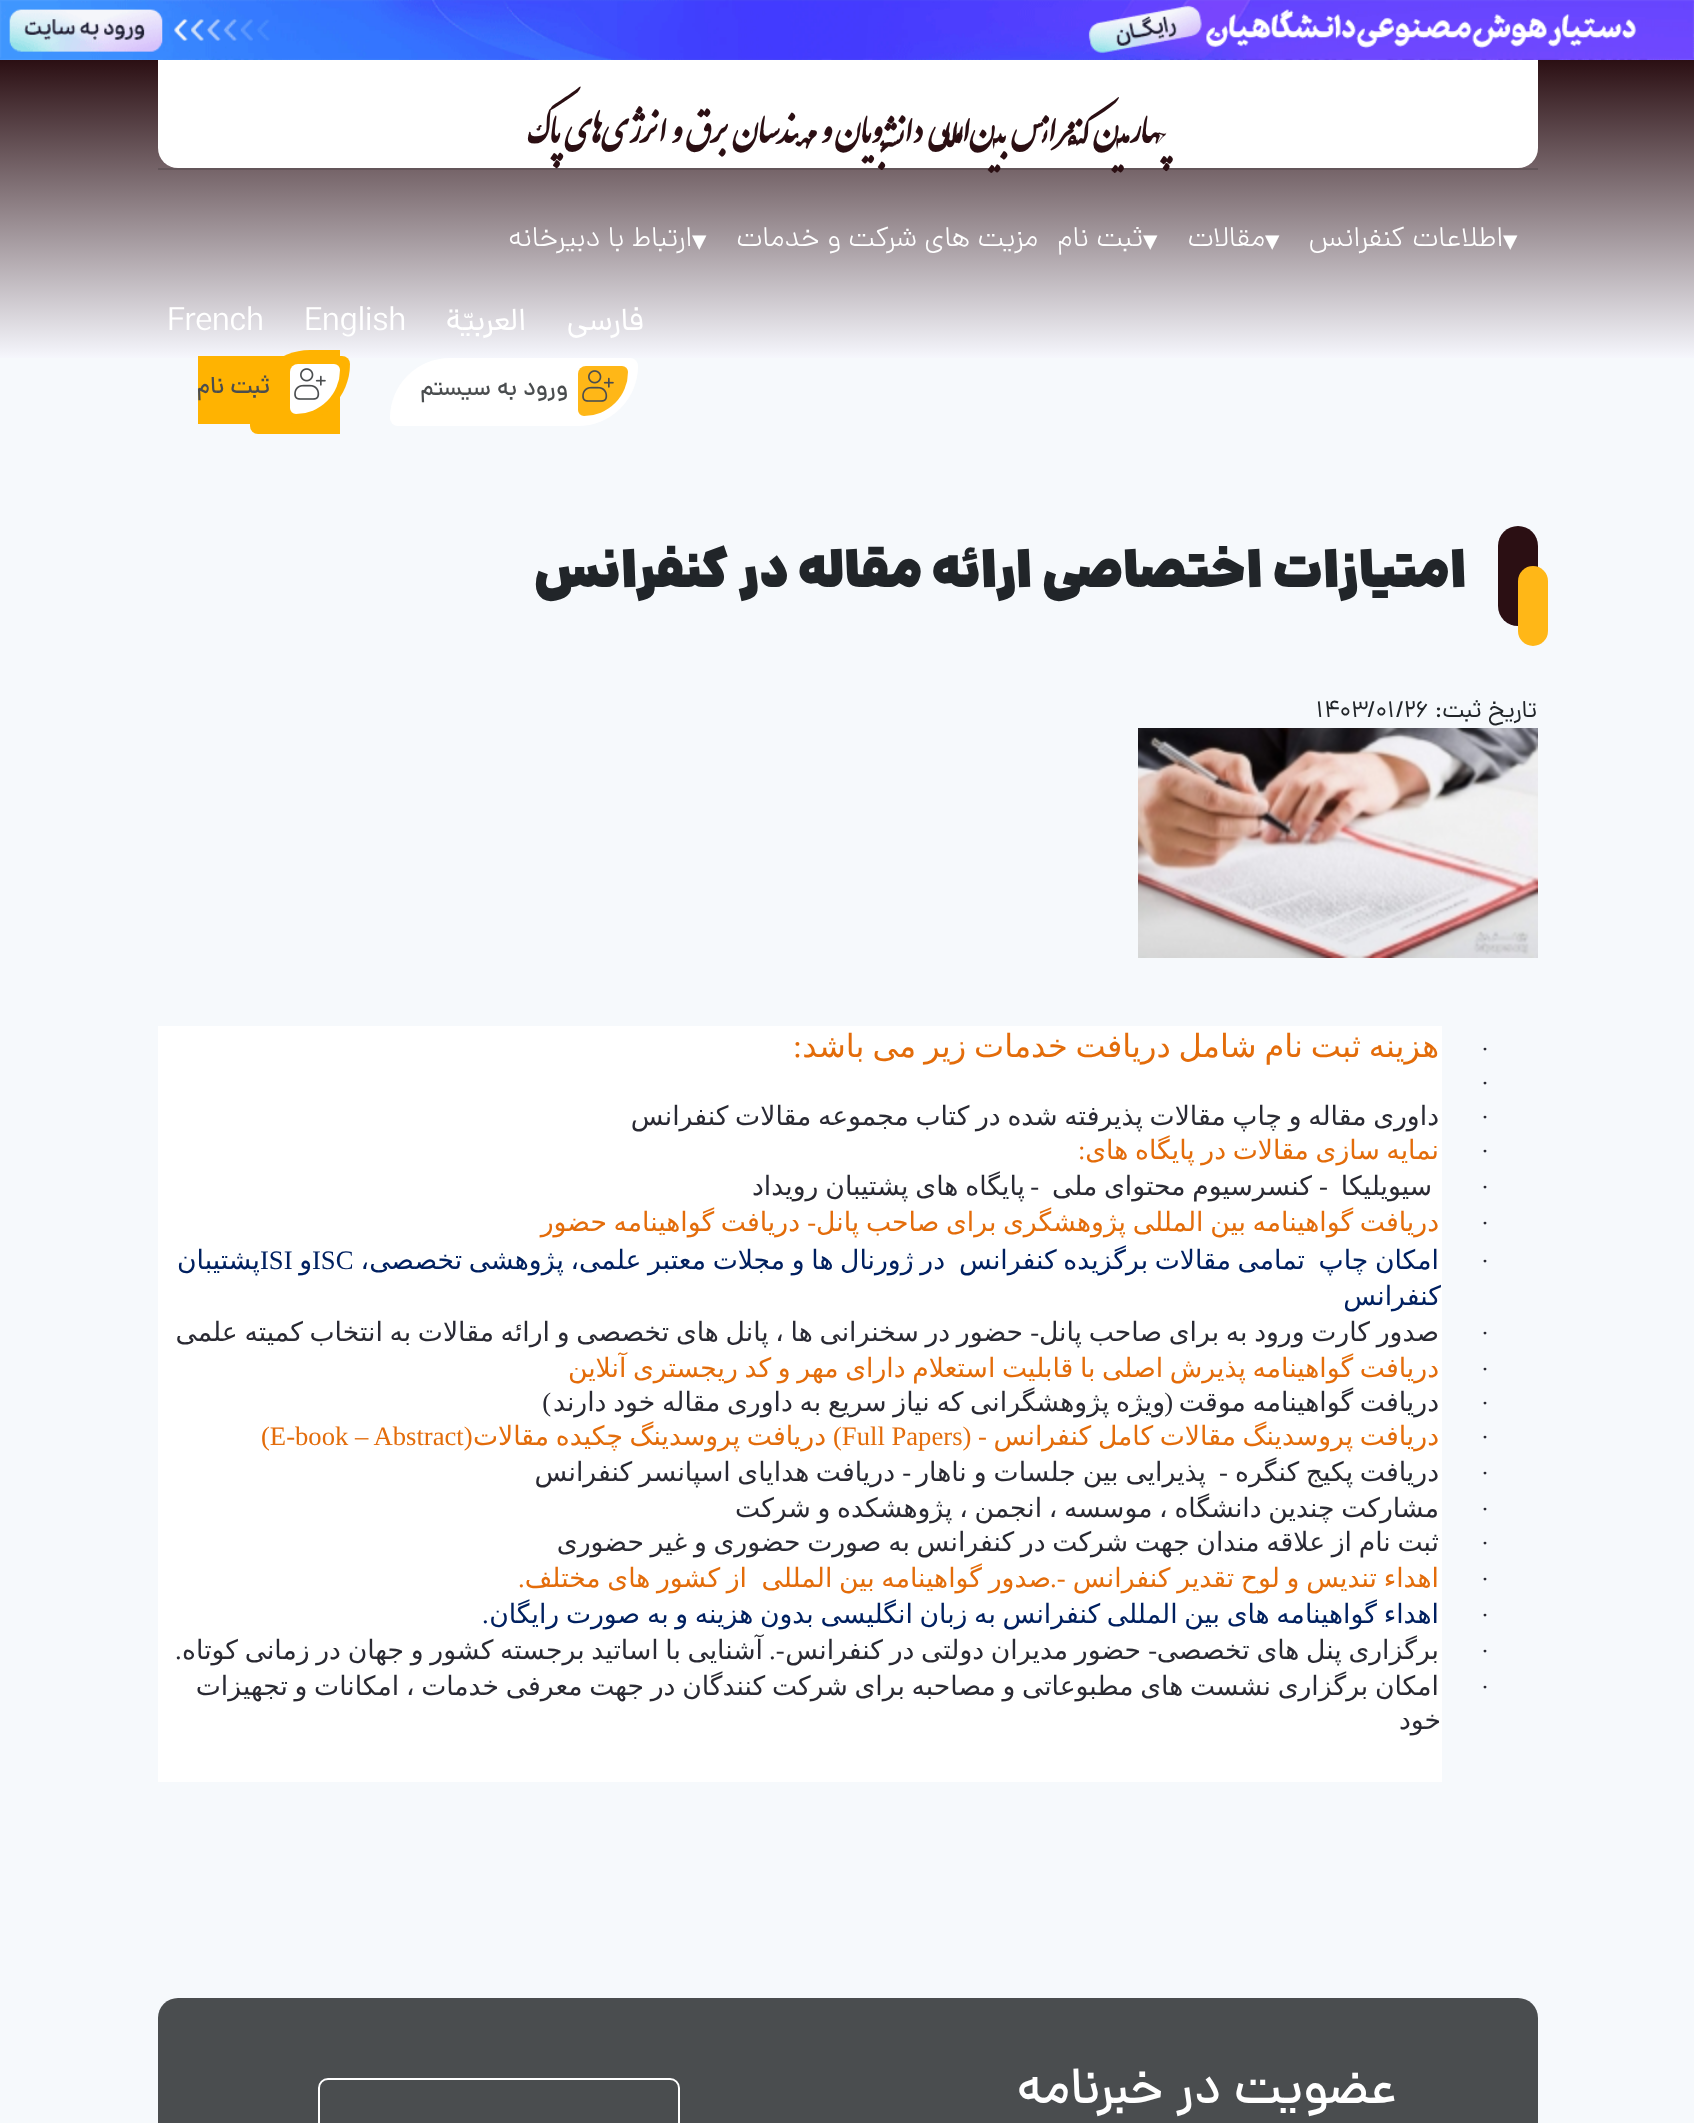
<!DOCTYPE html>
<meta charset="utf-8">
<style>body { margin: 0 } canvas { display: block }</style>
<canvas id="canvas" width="1694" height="2123"></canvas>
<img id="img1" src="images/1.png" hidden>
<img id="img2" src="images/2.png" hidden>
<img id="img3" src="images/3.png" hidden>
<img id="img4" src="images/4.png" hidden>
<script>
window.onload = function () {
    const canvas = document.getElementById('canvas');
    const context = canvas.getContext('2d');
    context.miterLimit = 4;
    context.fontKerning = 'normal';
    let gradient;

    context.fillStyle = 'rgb(246, 249, 252)';
    context.fillRect(0, 0, 1694, 2123);
    context.drawImage(document.getElementById('img1'), 0, 0, 1694, 60);
    gradient = context.createLinearGradient(847, 60, 847, 360);
    gradient.addColorStop(0, 'rgb(43, 15, 19)');
    gradient.addColorStop(1, 'rgb(247, 248, 254)');
    context.fillStyle = gradient;
    context.fillRect(0, 60, 1694, 298);
    context.fillStyle = 'rgb(255, 255, 255)';
    context.beginPath();
    context.roundRect(158, 60, 1380, 108, [0, 0, 20, 20]);
    context.fill();
    context.fillStyle = 'rgb(99, 85, 89)';
    context.fillRect(158, 168, 1380, 2);
    context.fillStyle = 'rgb(255, 255, 255)';
    context.beginPath();
    context.roundRect(390, 358, 248, 68, [60, 8, 60, 8]);
    context.fill();
    context.fillStyle = 'rgb(255, 183, 23)';
    context.beginPath();
    context.roundRect(578, 366, 50, 50, [8, 6, 44, 6]);
    context.fill();
    context.drawImage(document.getElementById('img2'), 582, 370, 32, 32);
    context.fillStyle = 'rgb(255, 179, 1)';
    context.beginPath();
    context.roundRect(250, 350, 90, 84, [60, 0, 0, 8]);
    context.fill();
    context.beginPath();
    context.roundRect(198, 356, 152, 68, [0, 8, 60, 0]);
    context.fill();
    context.fillStyle = 'rgb(255, 255, 255)';
    context.beginPath();
    context.roundRect(290, 364, 50, 50, [8, 6, 44, 6]);
    context.fill();
    context.drawImage(document.getElementById('img3'), 294, 368, 32, 32);
    context.fillStyle = 'rgb(43, 15, 19)';
    context.beginPath();
    context.roundRect(1498, 526, 40, 100, 20);
    context.fill();
    context.fillStyle = 'rgb(255, 183, 23)';
    context.beginPath();
    context.roundRect(1518, 566, 30, 80, 15);
    context.fill();
    context.drawImage(document.getElementById('img4'), 1138, 728, 400, 230);
    context.fillStyle = 'rgb(255, 255, 255)';
    context.fillRect(158, 1026, 1284, 756);
    context.fillStyle = 'rgb(74, 77, 79)';
    context.beginPath();
    context.roundRect(158, 1998, 1380, 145, 20);
    context.fill();
    context.beginPath();
    context.roundRect(319, 2079, 360, 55, 9);
    context.strokeStyle = 'rgb(255, 255, 255)';
    context.lineWidth = 2;
    context.stroke();
    context.direction = 'rtl';
    context.font = 'bold 38.4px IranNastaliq';
    context.fillStyle = 'rgb(43, 15, 19)';
    context.fillText('چهارمین کنفرانس بین‌المللی دانشجویان و مهندسان برق و انرژی‌های پاک', 1166, 143);
    context.direction = 'ltr';
    context.font = '28.75px DejaVu Sans';
    context.fillStyle = 'rgb(255, 255, 255)';
    context.fillText('▾', 1503, 250);
    context.direction = 'rtl';
    context.font = '300 28.75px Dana';
    context.fillText('اطلاعات کنفرانس', 1503, 246);
    context.direction = 'ltr';
    context.font = '28.75px DejaVu Sans';
    context.fillText('▾', 1265, 250);
    context.direction = 'rtl';
    context.font = '300 28.75px Dana';
    context.fillText('مقالات', 1265, 246);
    context.direction = 'ltr';
    context.font = '28.75px DejaVu Sans';
    context.fillText('▾', 1143, 250);
    context.direction = 'rtl';
    context.font = '300 28.75px Dana';
    context.fillText('ثبت نام', 1143, 246);
    context.fillText('مزیت های شرکت و خدمات', 1038, 246);
    context.direction = 'ltr';
    context.font = '28.75px DejaVu Sans';
    context.fillText('▾', 692, 250);
    context.direction = 'rtl';
    context.font = '300 28.75px Dana';
    context.fillText('ارتباط با دبیرخانه', 692, 246);
    context.font = '32px Dana';
    context.fillText('فارسی', 644, 330);
    context.fillText('العربیّة', 526, 330);
    context.direction = 'ltr';
    context.fillText('English', 304, 330);
    context.fillText('French', 167, 330);
    context.direction = 'rtl';
    context.font = '500 24px Dana';
    context.fillStyle = 'rgb(74, 77, 79)';
    context.fillText('ورود به سیستم', 568, 395);
    context.fillText('ثبت نام', 270, 393);
    context.font = '900 48px Dana';
    context.fillStyle = 'rgb(33, 37, 41)';
    context.fillText('امتیازات اختصاصی ارائه مقاله در', 1467, 587);
    context.fillText('کنفرانس', 728, 587);
    context.font = '24px Dana';
    context.fillText('تاریخ ثبت:', 1537, 717);
    context.direction = 'ltr';
    context.font = '24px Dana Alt';
    context.fillText('1403/01/26', 1316, 717);
    context.font = '24px Liberation Serif';
    context.fillStyle = 'rgb(42, 42, 51)';
    context.fillText('·', 1481, 1057);
    context.wordSpacing = '-2.25px';
    context.direction = 'rtl';
    context.font = '32px DejaVu Sans';
    context.fillStyle = 'rgb(227, 108, 10)';
    context.fillText('هزینه ثبت نام شامل دریافت خدمات زیر می باشد', 1439, 1057);
    context.wordSpacing = '0px';
    context.direction = 'ltr';
    context.font = '32px Liberation Serif';
    context.fillText(':', 793, 1057);
    context.font = '24px Liberation Serif';
    context.fillStyle = 'rgb(42, 42, 51)';
    context.fillText('·', 1481, 1091);
    context.fillText('·', 1481, 1125);
    context.wordSpacing = '-1.8px';
    context.direction = 'rtl';
    context.font = '26.65px DejaVu Sans';
    context.fillText('داوری مقاله و چاپ مقالات پذیرفته شده در کتاب مجموعه مقالات کنفرانس', 1439, 1125);
    context.wordSpacing = '0px';
    context.direction = 'ltr';
    context.font = '24px Liberation Serif';
    context.fillText('·', 1481, 1159);
    context.wordSpacing = '-1.8px';
    context.direction = 'rtl';
    context.font = '26.65px DejaVu Sans';
    context.fillStyle = 'rgb(227, 108, 10)';
    context.fillText('نمایه سازی مقالات در پایگاه های', 1439, 1159);
    context.wordSpacing = '0px';
    context.direction = 'ltr';
    context.font = '26.65px Liberation Serif';
    context.fillText(':', 1078, 1159);
    context.font = '24px Liberation Serif';
    context.fillStyle = 'rgb(42, 42, 51)';
    context.fillText('·', 1481, 1195);
    context.direction = 'rtl';
    context.font = '26.65px DejaVu Sans';
    context.fillText('سیویلیکا', 1432, 1195);
    context.direction = 'ltr';
    context.font = '26.65px Liberation Serif';
    context.fillText('-', 1319, 1195);
    context.wordSpacing = '-1.8px';
    context.direction = 'rtl';
    context.font = '26.65px DejaVu Sans';
    context.fillText('کنسرسیوم محتوای ملی', 1312, 1195);
    context.wordSpacing = '0px';
    context.font = '26.65px Liberation Serif';
    context.fillText('-', 1039, 1195);
    context.wordSpacing = '-1.5px';
    context.font = '26.65px DejaVu Sans';
    context.fillText('پایگاه های پشتیبان رویداد', 1025, 1195);
    context.wordSpacing = '0px';
    context.direction = 'ltr';
    context.font = '24px Liberation Serif';
    context.fillText('·', 1481, 1231);
    context.wordSpacing = '-1.8px';
    context.direction = 'rtl';
    context.font = '26.65px DejaVu Sans';
    context.fillStyle = 'rgb(227, 108, 10)';
    context.fillText('دریافت گواهینامه بین المللی پژوهشگری برای صاحب پانل', 1439, 1231);
    context.wordSpacing = '0px';
    context.font = '26.65px Liberation Serif';
    context.fillText('-', 816, 1231);
    context.wordSpacing = '-1.8px';
    context.font = '26.65px DejaVu Sans';
    context.fillText('دریافت گواهینامه حضور', 800, 1231);
    context.wordSpacing = '0px';
    context.direction = 'ltr';
    context.font = '24px Liberation Serif';
    context.fillStyle = 'rgb(42, 42, 51)';
    context.fillText('·', 1481, 1269);
    context.wordSpacing = '-1.8px';
    context.direction = 'rtl';
    context.font = '26.65px DejaVu Sans';
    context.fillStyle = 'rgb(0, 32, 96)';
    context.fillText('امکان چاپ', 1439, 1269);
    context.fillText('تمامی مقالات برگزیده کنفرانس', 1305, 1269);
    context.fillText('در ژورنال ها و مجلات معتبر علمی، پژوهشی تخصصی،', 945, 1269);
    context.wordSpacing = '0px';
    context.direction = 'ltr';
    context.font = '26.65px Liberation Serif';
    context.fillText('ISC', 312, 1269);
    context.direction = 'rtl';
    context.font = '26.65px DejaVu Sans';
    context.fillText('و', 312, 1269);
    context.direction = 'ltr';
    context.font = '26.65px Liberation Serif';
    context.fillText('ISI', 260, 1269);
    context.direction = 'rtl';
    context.font = '26.65px DejaVu Sans';
    context.fillText('پشتیبان', 260, 1269);
    context.fillText('کنفرانس', 1441, 1305);
    context.direction = 'ltr';
    context.font = '24px Liberation Serif';
    context.fillStyle = 'rgb(42, 42, 51)';
    context.fillText('·', 1481, 1341);
    context.wordSpacing = '-1.8px';
    context.direction = 'rtl';
    context.font = '26.65px DejaVu Sans';
    context.fillText('صدور کارت ورود به برای صاحب پانل', 1439, 1341);
    context.wordSpacing = '0px';
    context.font = '26.65px Liberation Serif';
    context.fillText('-', 1039, 1341);
    context.wordSpacing = '-1.8px';
    context.font = '26.65px DejaVu Sans';
    context.fillText('حضور در سخنرانی ها ، پانل های تخصصی و ارائه مقالات به انتخاب کمیته علمی', 1023, 1341);
    context.wordSpacing = '0px';
    context.direction = 'ltr';
    context.font = '24px Liberation Serif';
    context.fillText('·', 1481, 1377);
    context.wordSpacing = '-1.8px';
    context.direction = 'rtl';
    context.font = '26.65px DejaVu Sans';
    context.fillStyle = 'rgb(227, 108, 10)';
    context.fillText('دریافت گواهینامه پذیرش اصلی با قابلیت استعلام دارای مهر و کد ریجستری آنلاین', 1439, 1377);
    context.wordSpacing = '-1.75px';
    context.fillStyle = 'rgb(42, 42, 51)';
    context.fillText('دریافت گواهینامه موقت', 1439, 1411);
    context.fillText('ویژه پژوهشگرانی که نیاز سریع به داوری مقاله خود دارند', 1165, 1411);
    context.wordSpacing = '0px';
    context.font = '26.65px Liberation Serif';
    context.fillText(')', 551, 1411);
    context.direction = 'ltr';
    context.font = '24px Liberation Serif';
    context.fillText('·', 1481, 1411);
    context.direction = 'rtl';
    context.font = '26.65px Liberation Serif';
    context.fillText('(', 1173, 1411);
    context.direction = 'ltr';
    context.font = '24px Liberation Serif';
    context.fillText('·', 1481, 1445);
    context.wordSpacing = '-1.8px';
    context.direction = 'rtl';
    context.font = '26.65px DejaVu Sans';
    context.fillStyle = 'rgb(227, 108, 10)';
    context.fillText('دریافت پروسدینگ مقالات کامل کنفرانس', 1439, 1445);
    context.wordSpacing = '0px';
    context.direction = 'ltr';
    context.font = '26.65px Liberation Serif';
    context.fillText('(Full Papers) -', 833, 1445);
    context.wordSpacing = '-1.8px';
    context.direction = 'rtl';
    context.font = '26.65px DejaVu Sans';
    context.fillText('دریافت پروسدینگ چکیده مقالات', 826, 1445);
    context.wordSpacing = '0px';
    context.direction = 'ltr';
    context.font = '26.65px Liberation Serif';
    context.fillText('(E-book – Abstract)', 261, 1445);
    context.font = '24px Liberation Serif';
    context.fillStyle = 'rgb(42, 42, 51)';
    context.fillText('·', 1481, 1481);
    context.wordSpacing = '-1.8px';
    context.direction = 'rtl';
    context.font = '26.65px DejaVu Sans';
    context.fillText('دریافت پکیج کنگره', 1439, 1481);
    context.wordSpacing = '0px';
    context.direction = 'ltr';
    context.font = '26.65px Liberation Serif';
    context.fillText('-', 1219, 1481);
    context.wordSpacing = '-1.5px';
    context.direction = 'rtl';
    context.font = '26.65px DejaVu Sans';
    context.fillText('پذیرایی بین جلسات و ناهار', 1206, 1481);
    context.wordSpacing = '0px';
    context.font = '26.65px Liberation Serif';
    context.fillText('-', 911, 1481);
    context.wordSpacing = '-1.8px';
    context.font = '26.65px DejaVu Sans';
    context.fillText('دریافت هدایای اسپانسر کنفرانس', 895, 1481);
    context.wordSpacing = '0px';
    context.direction = 'ltr';
    context.font = '24px Liberation Serif';
    context.fillText('·', 1481, 1517);
    context.wordSpacing = '-1.8px';
    context.direction = 'rtl';
    context.font = '26.65px DejaVu Sans';
    context.fillText('مشارکت چندین دانشگاه ، موسسه ، انجمن ، پژوهشکده و شرکت', 1439, 1517);
    context.wordSpacing = '0px';
    context.direction = 'ltr';
    context.font = '24px Liberation Serif';
    context.fillText('·', 1481, 1551);
    context.wordSpacing = '-1.8px';
    context.direction = 'rtl';
    context.font = '26.65px DejaVu Sans';
    context.fillText('ثبت نام از علاقه مندان جهت شرکت در کنفرانس به صورت حضوری و غیر حضوری', 1439, 1551);
    context.wordSpacing = '0px';
    context.direction = 'ltr';
    context.font = '24px Liberation Serif';
    context.fillText('·', 1481, 1587);
    context.wordSpacing = '-1.8px';
    context.direction = 'rtl';
    context.font = '26.65px DejaVu Sans';
    context.fillStyle = 'rgb(227, 108, 10)';
    context.fillText('اهداء تندیس و لوح تقدیر کنفرانس', 1439, 1587);
    context.wordSpacing = '0px';
    context.direction = 'ltr';
    context.font = '26.65px Liberation Serif';
    context.fillText('.-', 1050, 1587);
    context.wordSpacing = '-1.8px';
    context.direction = 'rtl';
    context.font = '26.65px DejaVu Sans';
    context.fillText('صدور گواهینامه بین المللی', 1051, 1587);
    context.fillText('از کشور های مختلف', 747, 1587);
    context.wordSpacing = '0px';
    context.direction = 'ltr';
    context.font = '26.65px Liberation Serif';
    context.fillText('.', 518, 1587);
    context.font = '24px Liberation Serif';
    context.fillStyle = 'rgb(42, 42, 51)';
    context.fillText('·', 1481, 1623);
    context.wordSpacing = '-1.8px';
    context.direction = 'rtl';
    context.font = '26.65px DejaVu Sans';
    context.fillStyle = 'rgb(0, 32, 96)';
    context.fillText('اهداء گواهینامه های بین المللی کنفرانس به زبان انگلیسی بدون هزینه و به صورت رایگان', 1439, 1623);
    context.wordSpacing = '0px';
    context.direction = 'ltr';
    context.font = '26.65px Liberation Serif';
    context.fillText('.', 482, 1623);
    context.font = '24px Liberation Serif';
    context.fillStyle = 'rgb(42, 42, 51)';
    context.fillText('·', 1481, 1659);
    context.wordSpacing = '-1.8px';
    context.direction = 'rtl';
    context.font = '26.65px DejaVu Sans';
    context.fillText('برگزاری پنل های تخصصی', 1439, 1659);
    context.wordSpacing = '0px';
    context.font = '26.65px Liberation Serif';
    context.fillText('-', 1157, 1659);
    context.wordSpacing = '-1.8px';
    context.font = '26.65px DejaVu Sans';
    context.fillText('حضور مدیران دولتی در کنفرانس', 1141, 1659);
    context.wordSpacing = '0px';
    context.direction = 'ltr';
    context.font = '26.65px Liberation Serif';
    context.fillText('.-', 769, 1659);
    context.wordSpacing = '-1.8px';
    context.direction = 'rtl';
    context.font = '26.65px DejaVu Sans';
    context.fillText('آشنایی با اساتید برجسته کشور و جهان در زمانی کوتاه', 763, 1659);
    context.wordSpacing = '0px';
    context.direction = 'ltr';
    context.font = '26.65px Liberation Serif';
    context.fillText('.', 175, 1659);
    context.font = '24px Liberation Serif';
    context.fillText('·', 1481, 1695);
    context.wordSpacing = '-1.8px';
    context.direction = 'rtl';
    context.font = '26.65px DejaVu Sans';
    context.fillText('امکان برگزاری نشست های مطبوعاتی و مصاحبه برای شرکت کنندگان در جهت معرفی خدمات ، امکانات و تجهیزات', 1439, 1695);
    context.wordSpacing = '0px';
    context.fillText('خود', 1441, 1729);
    context.font = '500 51.25px Dana';
    context.fillStyle = 'rgb(255, 255, 255)';
    context.fillText('عضویت در خبرنامه', 1397, 2103);
};
</script>
